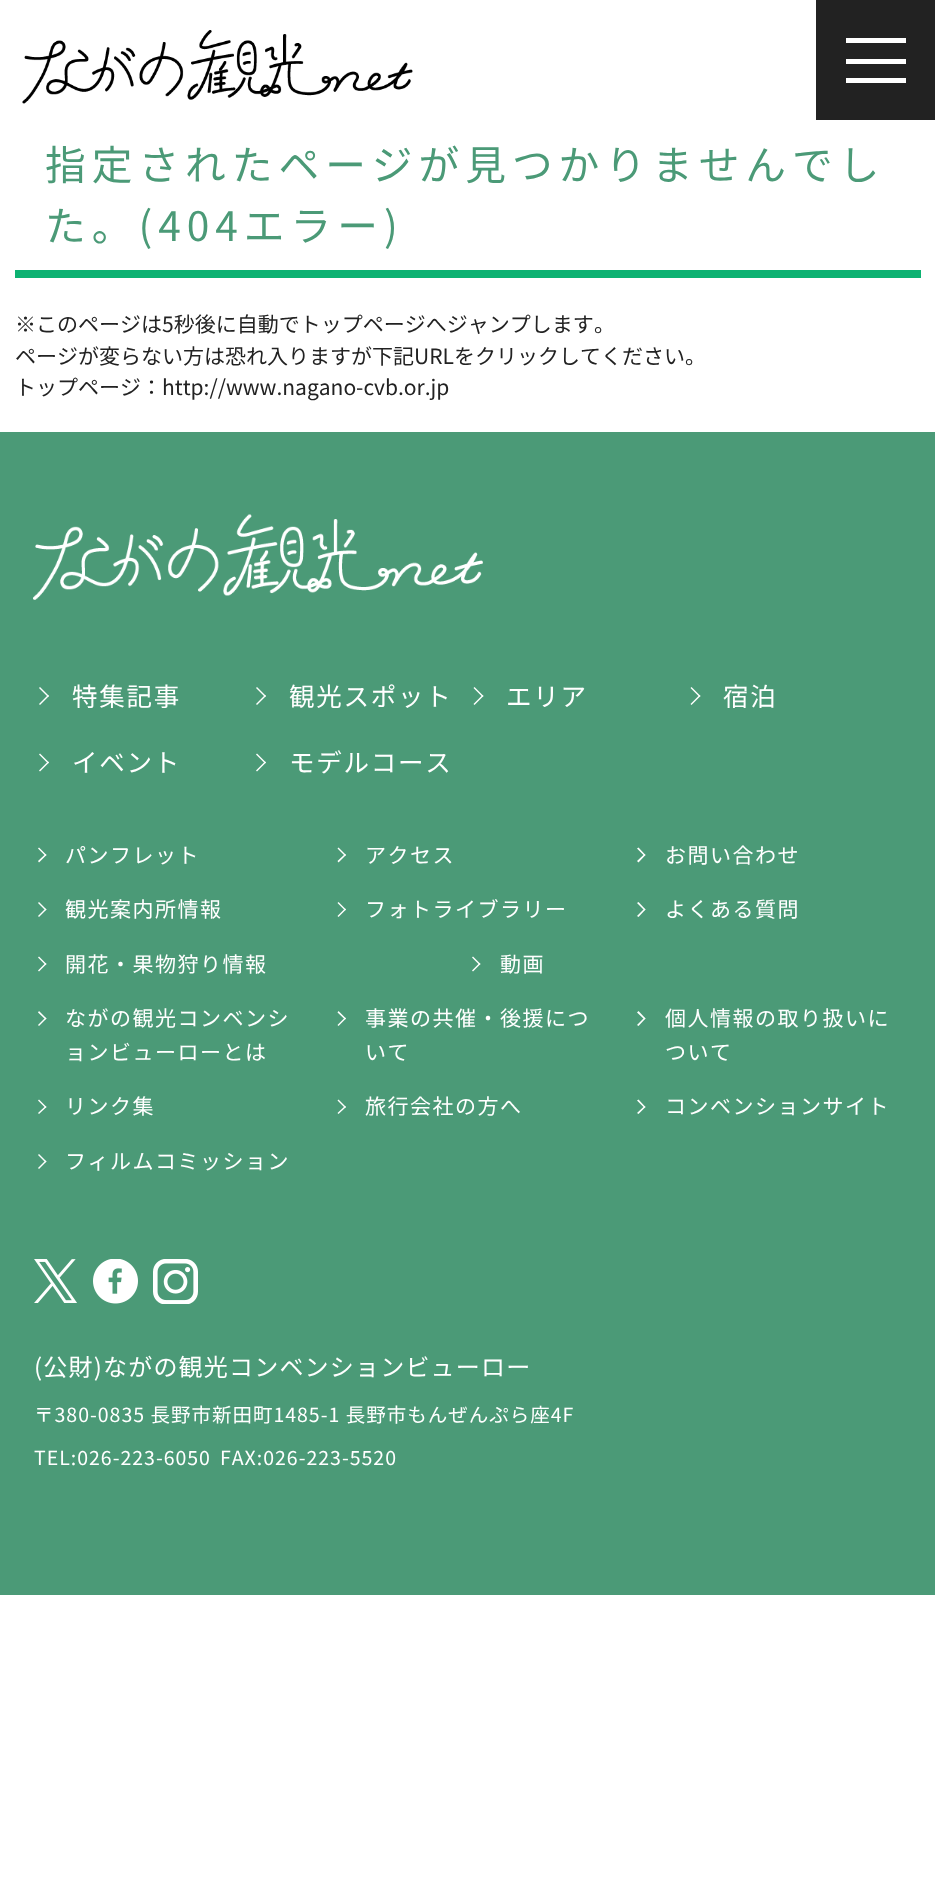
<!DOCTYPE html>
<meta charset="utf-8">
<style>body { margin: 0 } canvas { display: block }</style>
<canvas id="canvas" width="935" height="1893"></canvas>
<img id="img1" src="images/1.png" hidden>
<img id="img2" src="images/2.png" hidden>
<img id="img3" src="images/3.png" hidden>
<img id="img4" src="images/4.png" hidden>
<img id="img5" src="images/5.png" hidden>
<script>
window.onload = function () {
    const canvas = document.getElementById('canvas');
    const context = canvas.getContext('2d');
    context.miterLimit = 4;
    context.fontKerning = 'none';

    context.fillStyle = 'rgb(255, 255, 255)';
    context.fillRect(0, 0, 935, 1893);
    context.drawImage(document.getElementById('img1'), 22, 30, 391, 74);
    context.fillStyle = 'rgb(34, 34, 34)';
    context.fillRect(816, 0, 119, 120);
    context.fillStyle = 'rgb(255, 255, 255)';
    context.fillRect(846, 38, 60, 5);
    context.fillRect(846, 59, 60, 5);
    context.fillRect(846, 78, 60, 5);
    context.fillStyle = 'rgb(13, 178, 114)';
    context.fillRect(15, 270, 906, 8);
    context.fillStyle = 'rgb(75, 154, 119)';
    context.fillRect(0, 432, 935, 1163);
    context.drawImage(document.getElementById('img2'), 33, 514, 450, 86);
    context.fillStyle = 'rgb(255, 255, 255)';
    context.beginPath();
    context.moveTo(40, 687);
    context.lineTo(49, 696);
    context.lineTo(48, 697);
    context.lineTo(39, 688);
    context.closePath();
    context.fill();
    context.beginPath();
    context.moveTo(48, 695);
    context.lineTo(49, 696);
    context.lineTo(40, 705);
    context.lineTo(39, 704);
    context.closePath();
    context.fill();
    context.beginPath();
    context.moveTo(257, 687);
    context.lineTo(266, 696);
    context.lineTo(265, 697);
    context.lineTo(256, 688);
    context.closePath();
    context.fill();
    context.beginPath();
    context.moveTo(265, 695);
    context.lineTo(266, 696);
    context.lineTo(257, 705);
    context.lineTo(256, 704);
    context.closePath();
    context.fill();
    context.beginPath();
    context.moveTo(474.5, 687);
    context.lineTo(483.5, 696);
    context.lineTo(482.5, 697);
    context.lineTo(473.5, 688);
    context.closePath();
    context.fill();
    context.beginPath();
    context.moveTo(482.5, 695);
    context.lineTo(483.5, 696);
    context.lineTo(474.5, 705);
    context.lineTo(473.5, 704);
    context.closePath();
    context.fill();
    context.beginPath();
    context.moveTo(691.5, 687);
    context.lineTo(700.5, 696);
    context.lineTo(699.5, 697);
    context.lineTo(690.5, 688);
    context.closePath();
    context.fill();
    context.beginPath();
    context.moveTo(699.5, 695);
    context.lineTo(700.5, 696);
    context.lineTo(691.5, 705);
    context.lineTo(690.5, 704);
    context.closePath();
    context.fill();
    context.beginPath();
    context.moveTo(40, 753.5);
    context.lineTo(49, 762.5);
    context.lineTo(48, 763.5);
    context.lineTo(39, 754.5);
    context.closePath();
    context.fill();
    context.beginPath();
    context.moveTo(48, 761.5);
    context.lineTo(49, 762.5);
    context.lineTo(40, 771.5);
    context.lineTo(39, 770.5);
    context.closePath();
    context.fill();
    context.beginPath();
    context.moveTo(257, 753.5);
    context.lineTo(266, 762.5);
    context.lineTo(265, 763.5);
    context.lineTo(256, 754.5);
    context.closePath();
    context.fill();
    context.beginPath();
    context.moveTo(265, 761.5);
    context.lineTo(266, 762.5);
    context.lineTo(257, 771.5);
    context.lineTo(256, 770.5);
    context.closePath();
    context.fill();
    context.beginPath();
    context.moveTo(39, 847.5);
    context.lineTo(46.5, 855);
    context.lineTo(45.5, 856);
    context.lineTo(38, 848.5);
    context.closePath();
    context.fill();
    context.beginPath();
    context.moveTo(45.5, 854);
    context.lineTo(46.5, 855);
    context.lineTo(39, 862.5);
    context.lineTo(38, 861);
    context.closePath();
    context.fill();
    context.beginPath();
    context.moveTo(338.5, 847.5);
    context.lineTo(346, 855);
    context.lineTo(345, 856);
    context.lineTo(337.5, 848.5);
    context.closePath();
    context.fill();
    context.beginPath();
    context.moveTo(345, 854);
    context.lineTo(346, 855);
    context.lineTo(338.5, 862.5);
    context.lineTo(337.5, 861);
    context.closePath();
    context.fill();
    context.beginPath();
    context.moveTo(638.5, 847.5);
    context.lineTo(645.5, 855);
    context.lineTo(644.5, 856);
    context.lineTo(637, 848.5);
    context.closePath();
    context.fill();
    context.beginPath();
    context.moveTo(644.5, 854);
    context.lineTo(645.5, 855);
    context.lineTo(638.5, 862.5);
    context.lineTo(637, 861);
    context.closePath();
    context.fill();
    context.beginPath();
    context.moveTo(39, 902);
    context.lineTo(46.5, 909.5);
    context.lineTo(45.5, 910.5);
    context.lineTo(38, 903);
    context.closePath();
    context.fill();
    context.beginPath();
    context.moveTo(45.5, 908.5);
    context.lineTo(46.5, 909.5);
    context.lineTo(39, 917);
    context.lineTo(38, 916);
    context.closePath();
    context.fill();
    context.beginPath();
    context.moveTo(338.5, 902);
    context.lineTo(346, 909.5);
    context.lineTo(345, 910.5);
    context.lineTo(337.5, 903);
    context.closePath();
    context.fill();
    context.beginPath();
    context.moveTo(345, 908.5);
    context.lineTo(346, 909.5);
    context.lineTo(338.5, 917);
    context.lineTo(337.5, 916);
    context.closePath();
    context.fill();
    context.beginPath();
    context.moveTo(638.5, 902);
    context.lineTo(645.5, 909.5);
    context.lineTo(644.5, 910.5);
    context.lineTo(637, 903);
    context.closePath();
    context.fill();
    context.beginPath();
    context.moveTo(644.5, 908.5);
    context.lineTo(645.5, 909.5);
    context.lineTo(638.5, 917);
    context.lineTo(637, 916);
    context.closePath();
    context.fill();
    context.beginPath();
    context.moveTo(39, 956.5);
    context.lineTo(46.5, 964);
    context.lineTo(45.5, 965);
    context.lineTo(38, 957.5);
    context.closePath();
    context.fill();
    context.beginPath();
    context.moveTo(45.5, 963);
    context.lineTo(46.5, 964);
    context.lineTo(39, 971.5);
    context.lineTo(38, 970.5);
    context.closePath();
    context.fill();
    context.beginPath();
    context.moveTo(473, 956.5);
    context.lineTo(480.5, 964);
    context.lineTo(479.5, 965);
    context.lineTo(472, 957.5);
    context.closePath();
    context.fill();
    context.beginPath();
    context.moveTo(479.5, 963);
    context.lineTo(480.5, 964);
    context.lineTo(473, 971.5);
    context.lineTo(472, 970.5);
    context.closePath();
    context.fill();
    context.beginPath();
    context.moveTo(39, 1011);
    context.lineTo(46.5, 1018.5);
    context.lineTo(45.5, 1019.5);
    context.lineTo(38, 1012.5);
    context.closePath();
    context.fill();
    context.beginPath();
    context.moveTo(45.5, 1017.5);
    context.lineTo(46.5, 1018.5);
    context.lineTo(39, 1026);
    context.lineTo(38, 1025);
    context.closePath();
    context.fill();
    context.beginPath();
    context.moveTo(338.5, 1011);
    context.lineTo(346, 1018.5);
    context.lineTo(345, 1019.5);
    context.lineTo(337.5, 1012.5);
    context.closePath();
    context.fill();
    context.beginPath();
    context.moveTo(345, 1017.5);
    context.lineTo(346, 1018.5);
    context.lineTo(338.5, 1026);
    context.lineTo(337.5, 1025);
    context.closePath();
    context.fill();
    context.beginPath();
    context.moveTo(638.5, 1011);
    context.lineTo(645.5, 1018.5);
    context.lineTo(644.5, 1019.5);
    context.lineTo(637, 1012.5);
    context.closePath();
    context.fill();
    context.beginPath();
    context.moveTo(644.5, 1017.5);
    context.lineTo(645.5, 1018.5);
    context.lineTo(638.5, 1026);
    context.lineTo(637, 1025);
    context.closePath();
    context.fill();
    context.beginPath();
    context.moveTo(39, 1099.5);
    context.lineTo(46.5, 1107);
    context.lineTo(45.5, 1108);
    context.lineTo(38, 1100.5);
    context.closePath();
    context.fill();
    context.beginPath();
    context.moveTo(45.5, 1106);
    context.lineTo(46.5, 1107);
    context.lineTo(39, 1114);
    context.lineTo(38, 1113);
    context.closePath();
    context.fill();
    context.beginPath();
    context.moveTo(338.5, 1099.5);
    context.lineTo(346, 1107);
    context.lineTo(345, 1108);
    context.lineTo(337.5, 1100.5);
    context.closePath();
    context.fill();
    context.beginPath();
    context.moveTo(345, 1106);
    context.lineTo(346, 1107);
    context.lineTo(338.5, 1114);
    context.lineTo(337.5, 1113);
    context.closePath();
    context.fill();
    context.beginPath();
    context.moveTo(638.5, 1099.5);
    context.lineTo(645.5, 1107);
    context.lineTo(644.5, 1108);
    context.lineTo(637, 1100.5);
    context.closePath();
    context.fill();
    context.beginPath();
    context.moveTo(644.5, 1106);
    context.lineTo(645.5, 1107);
    context.lineTo(638.5, 1114);
    context.lineTo(637, 1113);
    context.closePath();
    context.fill();
    context.beginPath();
    context.moveTo(39, 1154);
    context.lineTo(46.5, 1161.5);
    context.lineTo(45.5, 1162.5);
    context.lineTo(38, 1155);
    context.closePath();
    context.fill();
    context.beginPath();
    context.moveTo(45.5, 1160.5);
    context.lineTo(46.5, 1161.5);
    context.lineTo(39, 1169);
    context.lineTo(38, 1168);
    context.closePath();
    context.fill();
    context.drawImage(document.getElementById('img3'), 34, 1259, 43, 44);
    context.drawImage(document.getElementById('img4'), 93, 1259, 45, 45);
    context.drawImage(document.getElementById('img5'), 153, 1259, 45, 45);
    context.letterSpacing = '6px';
    context.font = '40.7px Noto Sans JP';
    context.fillStyle = 'rgb(75, 154, 119)';
    context.fillText('指定されたページが見つかりませんでし', 45, 180);
    context.fillText('た。(404エラー)', 45, 241);
    context.letterSpacing = '0px';
    context.font = '21px Noto Sans JP';
    context.fillStyle = 'rgb(34, 34, 34)';
    context.fillText('※このページは5秒後に自動でトップページへジャンプします', 15, 332);
    context.fillText('。', 594, 332);
    context.fillText('ページが変らない方は恐れ入りますが下記URLをクリックしてください。', 15, 364);
    context.fillText('トップページ：http://www.nagano-cvb.or.jp', 15, 395);
    context.letterSpacing = '1.75px';
    context.font = '25.5px Noto Sans JP';
    context.fillStyle = 'rgb(255, 255, 255)';
    context.fillText('特集記事', 72, 706);
    context.fillText('観光スポット', 289, 706);
    context.fillText('エリア', 506, 706);
    context.fillText('宿泊', 723, 706);
    context.fillText('イベント', 72, 772);
    context.fillText('モデルコース', 289, 772);
    context.letterSpacing = '1.5px';
    context.font = '21px Noto Sans JP';
    context.fillText('パンフレット', 65, 863);
    context.fillText('アクセス', 365, 863);
    context.fillText('お問い合わせ', 665, 863);
    context.fillText('観光案内所情報', 65, 917);
    context.fillText('フォトライブラリー', 365, 917);
    context.fillText('よくある質問', 665, 917);
    context.fillText('開花・果物狩り情報', 65, 972);
    context.fillText('動画', 500, 972);
    context.fillText('ながの観光コンベンシ', 65, 1026);
    context.fillText('ョンビューローとは', 65, 1060);
    context.fillText('事業の共催・後援につ', 365, 1026);
    context.fillText('いて', 365, 1060);
    context.fillText('個人情報の取り扱いに', 665, 1026);
    context.fillText('ついて', 665, 1060);
    context.fillText('リンク集', 65, 1114);
    context.fillText('旅行会社の方へ', 365, 1114);
    context.fillText('コンベンションサイト', 665, 1114);
    context.fillText('フィルムコミッション', 65, 1169);
    context.letterSpacing = '1.2px';
    context.font = '24px Noto Sans JP';
    context.fillText('(公財)ながの観光コンベンションビューロー', 34, 1376);
    context.letterSpacing = '1px';
    context.font = '19.5px Noto Sans JP';
    context.fillText('〒380-0835 長野市新田町1485-1 長野市もんぜんぷら座4F', 34, 1422);
    context.fillText('TEL:026-223-6050', 34, 1465);
    context.fillText('FAX:026-223-5520', 220, 1465);
};
</script>
